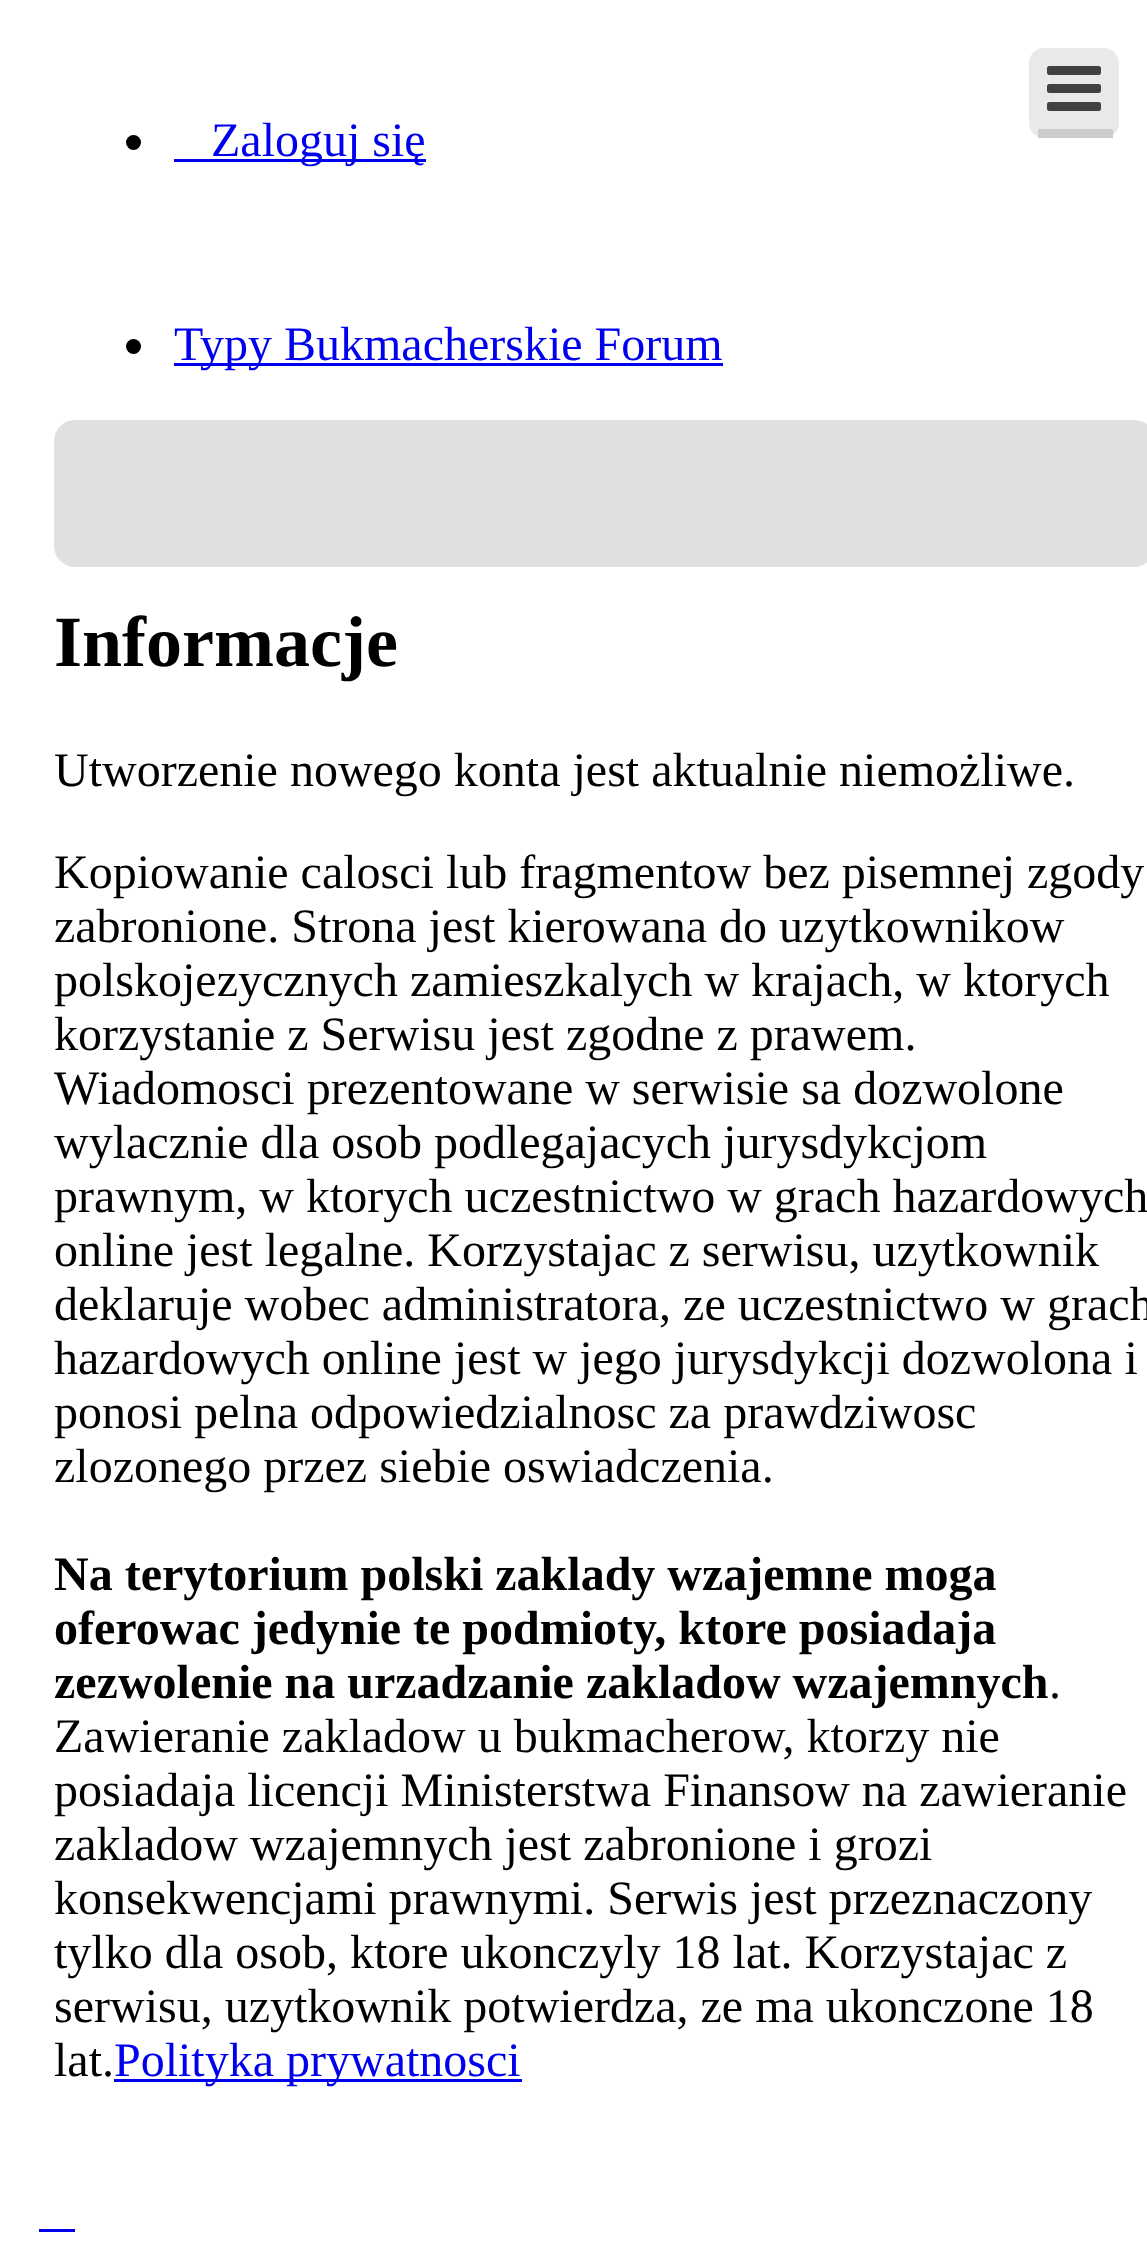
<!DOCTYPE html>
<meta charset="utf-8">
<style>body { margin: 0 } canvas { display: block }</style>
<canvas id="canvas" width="1147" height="2263"></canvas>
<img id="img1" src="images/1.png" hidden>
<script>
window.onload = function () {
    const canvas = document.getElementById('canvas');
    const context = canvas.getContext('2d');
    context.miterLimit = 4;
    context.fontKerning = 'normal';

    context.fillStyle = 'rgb(255, 255, 255)';
    context.fillRect(0, 0, 1147, 2263);
    context.fillStyle = 'rgb(233, 233, 233)';
    context.beginPath();
    context.roundRect(1029, 48, 90, 90, 15);
    context.fill();
    context.fillStyle = 'rgb(204, 204, 204)';
    context.fillRect(1038, 129, 75, 9);
    context.drawImage(document.getElementById('img1'), 1047, 66, 54, 45);
    context.fillStyle = 'rgb(0, 0, 0)';
    context.beginPath();
    context.arc(133.5, 142.5, 7.5, 0, 2 * Math.PI);
    context.fill();
    context.fillStyle = 'rgb(0, 0, 238)';
    context.fillRect(174, 159, 252, 3);
    context.fillStyle = 'rgb(0, 0, 0)';
    context.beginPath();
    context.arc(133.5, 346.5, 7.5, 0, 2 * Math.PI);
    context.fill();
    context.fillStyle = 'rgb(0, 0, 238)';
    context.fillRect(174, 363, 549, 3);
    context.fillStyle = 'rgb(224, 224, 224)';
    context.beginPath();
    context.roundRect(54, 420, 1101, 147, 21);
    context.fill();
    context.fillStyle = 'rgb(0, 0, 238)';
    context.fillRect(114, 2079, 408, 3);
    context.fillRect(39, 2229, 36, 3);
    context.font = '48px Liberation Serif';
    context.fillText('Zaloguj się', 211, 156);
    context.fillText('Typy Bukmacherskie Forum', 174, 360);
    context.font = 'bold 72px Liberation Serif';
    context.fillStyle = 'rgb(0, 0, 0)';
    context.fillText('Informacje', 54, 666);
    context.font = '48px Liberation Serif';
    context.fillText('Utworzenie nowego konta jest aktualnie niemożliwe.', 54, 786);
    context.fillText('Kopiowanie calosci lub fragmentow bez pisemnej zgody', 54, 888);
    context.fillText('zabronione. Strona jest kierowana do uzytkownikow', 54, 942);
    context.fillText('polskojezycznych zamieszkalych w krajach, w ktorych', 54, 996);
    context.fillText('korzystanie z Serwisu jest zgodne z prawem.', 54, 1050);
    context.fillText('Wiadomosci prezentowane w serwisie sa dozwolone', 54, 1104);
    context.fillText('wylacznie dla osob podlegajacych jurysdykcjom', 54, 1158);
    context.fillText('prawnym, w ktorych uczestnictwo w grach hazardowych', 54, 1212);
    context.fillText('online jest legalne. Korzystajac z serwisu, uzytkownik', 54, 1266);
    context.fillText('deklaruje wobec administratora, ze uczestnictwo w grach', 54, 1320);
    context.fillText('hazardowych online jest w jego jurysdykcji dozwolona i', 54, 1374);
    context.fillText('ponosi pelna odpowiedzialnosc za prawdziwosc', 54, 1428);
    context.fillText('zlozonego przez siebie oswiadczenia.', 54, 1482);
    context.font = 'bold 48px Liberation Serif';
    context.fillText('Na terytorium polski zaklady wzajemne moga', 54, 1590);
    context.fillText('oferowac jedynie te podmioty, ktore posiadaja', 54, 1644);
    context.fillText('zezwolenie na urzadzanie zakladow wzajemnych', 54, 1698);
    context.font = '48px Liberation Serif';
    context.fillText('.', 1049, 1698);
    context.fillText('Zawieranie zakladow u bukmacherow, ktorzy nie', 54, 1752);
    context.fillText('posiadaja licencji Ministerstwa Finansow na zawieranie', 54, 1806);
    context.fillText('zakladow wzajemnych jest zabronione i grozi', 54, 1860);
    context.fillText('konsekwencjami prawnymi. Serwis jest przeznaczony', 54, 1914);
    context.fillText('tylko dla osob, ktore ukonczyly 18 lat. Korzystajac z', 54, 1968);
    context.fillText('serwisu, uzytkownik potwierdza, ze ma ukonczone 18', 54, 2022);
    context.fillText('lat.', 54, 2076);
    context.fillStyle = 'rgb(0, 0, 238)';
    context.fillText('Polityka prywatnosci', 114, 2076);
};
</script>
